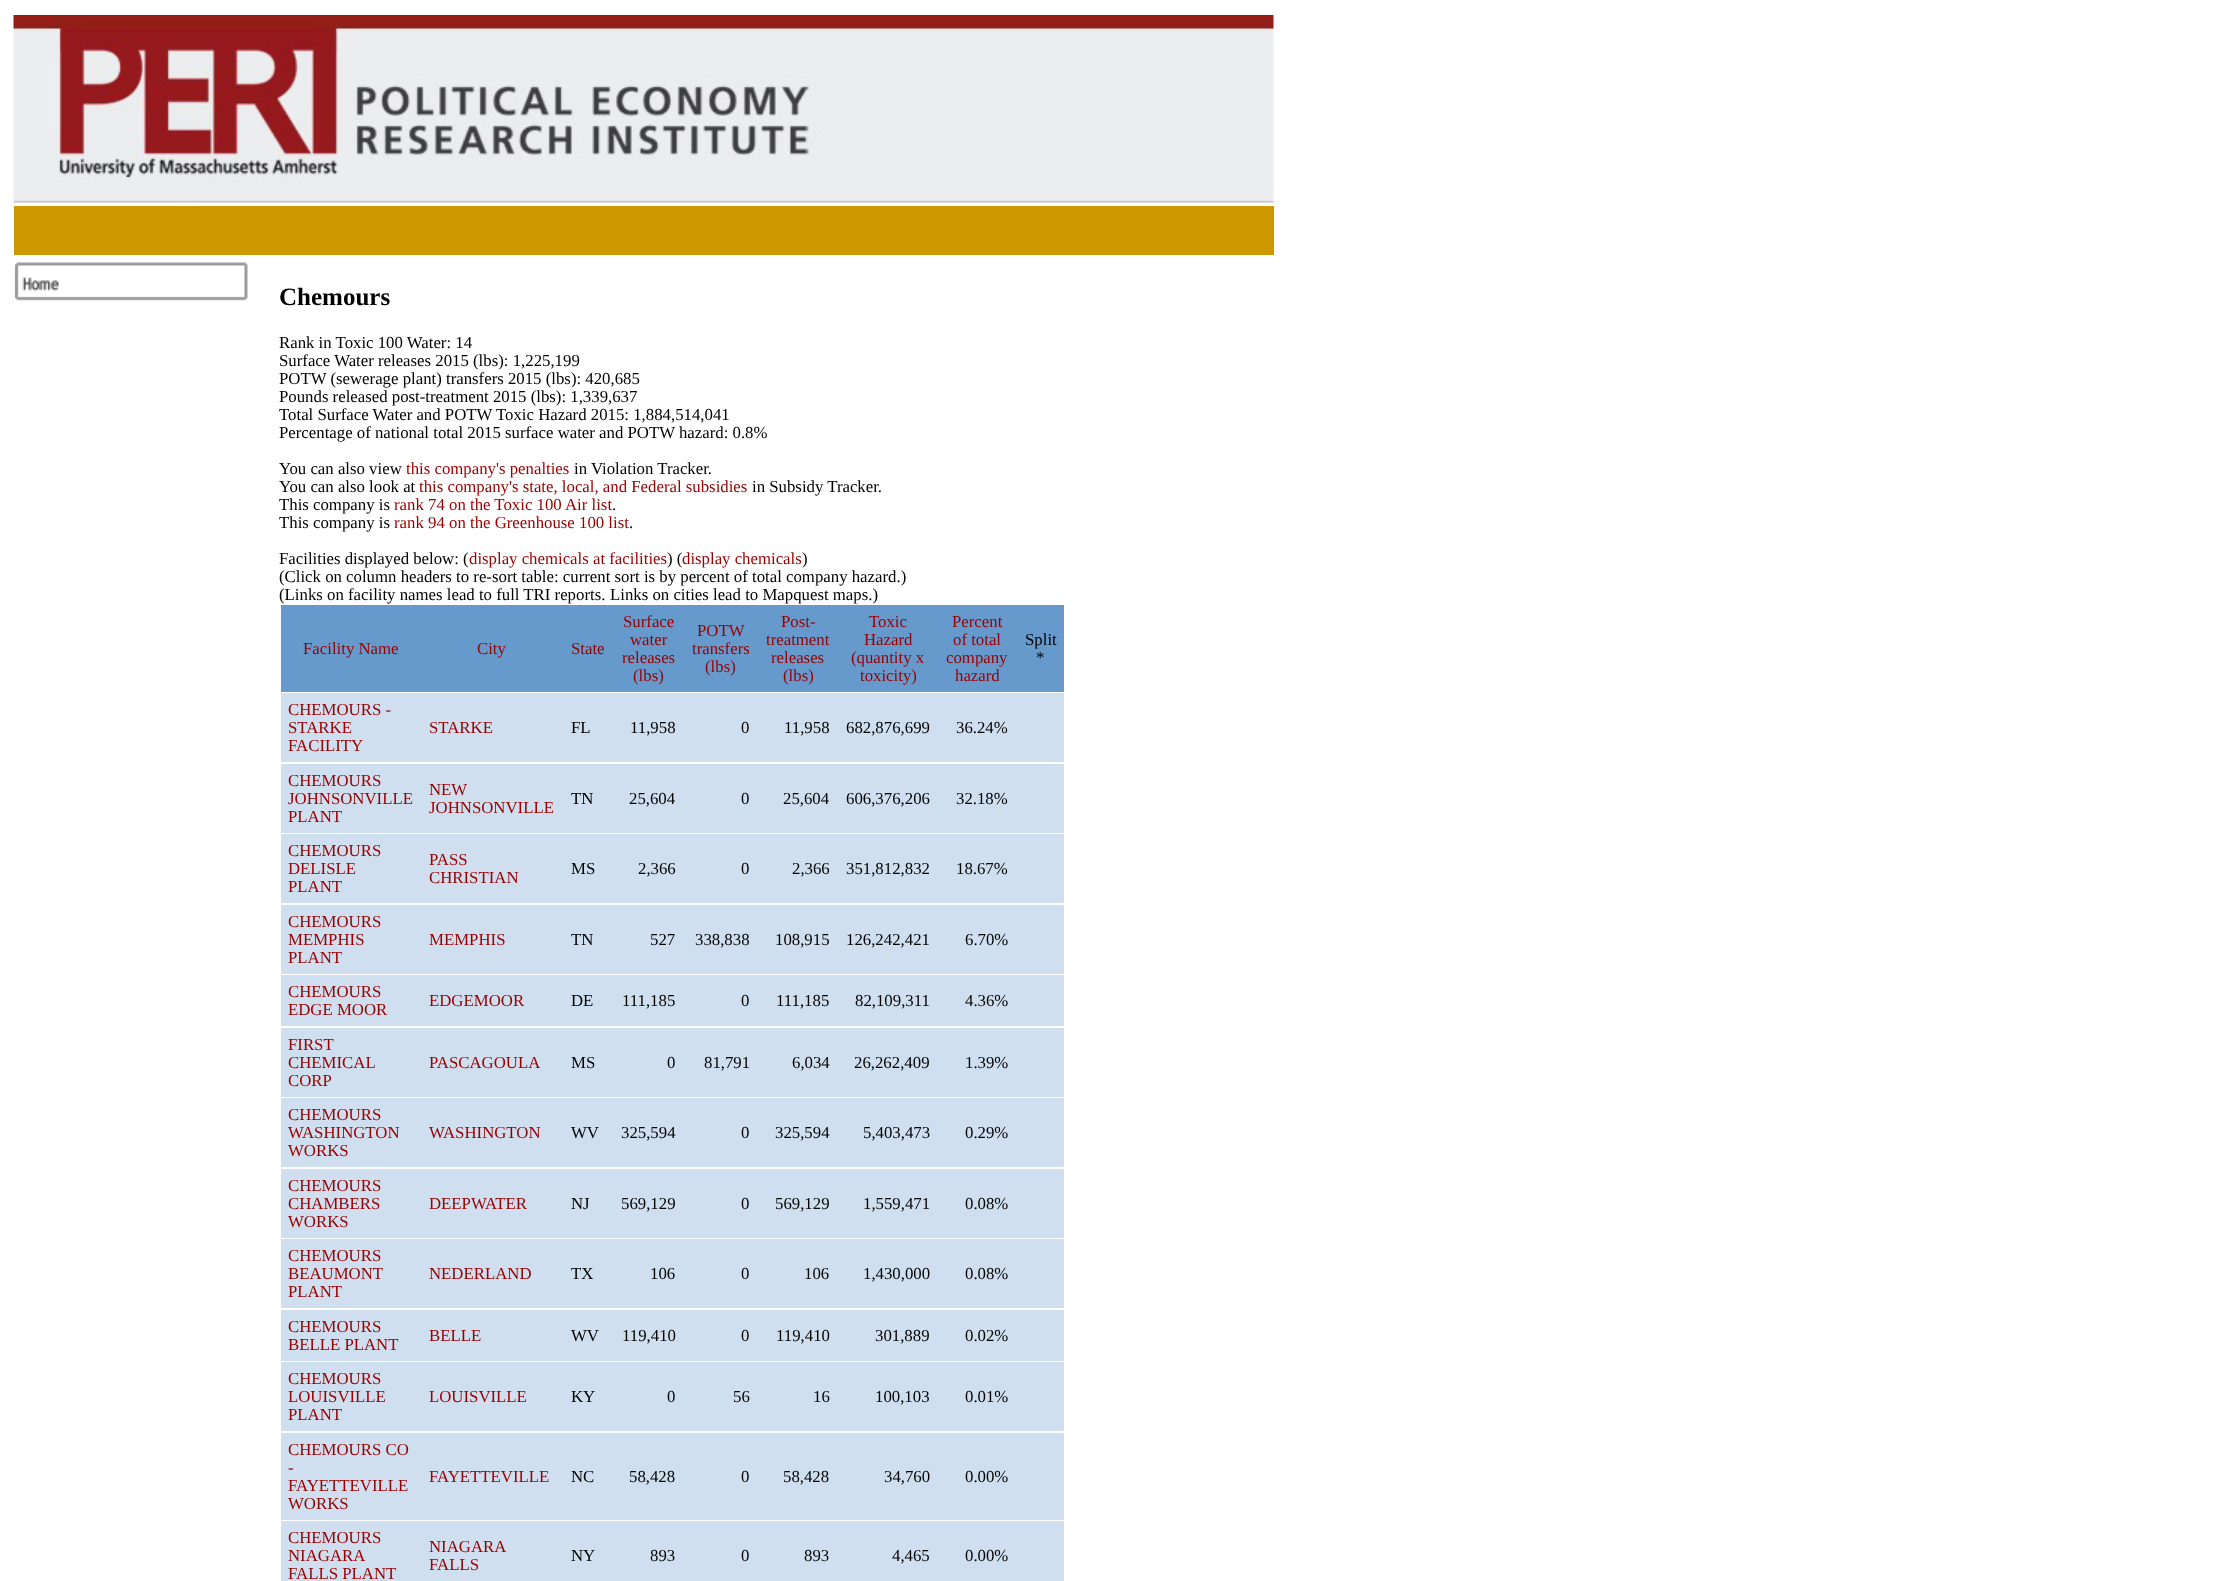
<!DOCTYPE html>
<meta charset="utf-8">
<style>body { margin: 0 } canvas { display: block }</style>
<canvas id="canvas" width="2234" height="1581"></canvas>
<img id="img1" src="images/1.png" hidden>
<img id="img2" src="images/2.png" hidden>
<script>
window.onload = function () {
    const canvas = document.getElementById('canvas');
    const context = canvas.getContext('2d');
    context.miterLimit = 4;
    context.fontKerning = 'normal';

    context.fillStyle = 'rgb(255, 255, 255)';
    context.fillRect(0, 0, 2234, 1581);
    context.drawImage(document.getElementById('img1'), 13, 15, 1261, 188);
    context.fillStyle = 'rgb(204, 153, 0)';
    context.fillRect(14, 206, 1260, 49);
    context.drawImage(document.getElementById('img2'), 15, 262, 233, 39);
    context.fillStyle = 'rgb(102, 153, 204)';
    context.fillRect(281, 605, 783, 87);
    context.fillStyle = 'rgb(207, 223, 239)';
    context.fillRect(281, 693, 783, 69);
    context.fillRect(281, 764, 783, 69);
    context.fillRect(281, 834, 783, 69);
    context.fillRect(281, 905, 783, 69);
    context.fillRect(281, 975, 783, 51);
    context.fillRect(281, 1028, 783, 69);
    context.fillRect(281, 1098, 783, 69);
    context.fillRect(281, 1169, 783, 69);
    context.fillRect(281, 1239, 783, 69);
    context.fillRect(281, 1310, 783, 51);
    context.fillRect(281, 1362, 783, 69);
    context.fillRect(281, 1433, 783, 87);
    context.fillRect(281, 1521, 783, 60);
    context.font = 'bold 25px Liberation Serif';
    context.fillStyle = 'rgb(0, 0, 0)';
    context.fillText('Chemours', 279, 305);
    context.font = '16.8px Liberation Serif';
    context.fillText('Rank in Toxic 100 Water: 14', 279, 348);
    context.fillText('Surface Water releases 2015 (lbs): 1,225,199', 279, 366);
    context.fillText('POTW (sewerage plant) transfers 2015 (lbs): 420,685', 279, 384);
    context.fillText('Pounds released post-treatment 2015 (lbs): 1,339,637', 279, 402);
    context.fillText('Total Surface Water and POTW Toxic Hazard 2015: 1,884,514,041', 279, 420);
    context.fillText('Percentage of national total 2015 surface water and POTW hazard: 0.8%', 279, 438);
    context.fillText('You can also view', 279, 474);
    context.fillStyle = 'rgb(153, 0, 0)';
    context.fillText('this company\'s penalties', 406, 474);
    context.fillStyle = 'rgb(0, 0, 0)';
    context.fillText('in Violation Tracker.', 574, 474);
    context.fillText('You can also look at', 279, 492);
    context.fillStyle = 'rgb(153, 0, 0)';
    context.fillText('this company\'s state, local, and Federal subsidies', 419, 492);
    context.fillStyle = 'rgb(0, 0, 0)';
    context.fillText('in Subsidy Tracker.', 752, 492);
    context.fillText('This company is', 279, 510);
    context.fillStyle = 'rgb(153, 0, 0)';
    context.fillText('rank 74 on the Toxic 100 Air list', 394, 510);
    context.fillStyle = 'rgb(0, 0, 0)';
    context.fillText('.', 612, 510);
    context.fillText('This company is', 279, 528);
    context.fillStyle = 'rgb(153, 0, 0)';
    context.fillText('rank 94 on the Greenhouse 100 list', 394, 528);
    context.fillStyle = 'rgb(0, 0, 0)';
    context.fillText('.', 629, 528);
    context.fillText('Facilities displayed below: (', 279, 564);
    context.fillStyle = 'rgb(153, 0, 0)';
    context.fillText('display chemicals at facilities', 469, 564);
    context.fillStyle = 'rgb(0, 0, 0)';
    context.fillText(') (', 667, 564);
    context.fillStyle = 'rgb(153, 0, 0)';
    context.fillText('display chemicals', 682, 564);
    context.fillStyle = 'rgb(0, 0, 0)';
    context.fillText(')', 802, 564);
    context.fillText('(Click on column headers to re-sort table: current sort is by percent of total company hazard.)', 279, 582);
    context.fillText('(Links on facility names lead to full TRI reports.', 279, 600);
    context.fillText('Links on cities lead to Mapquest maps.)', 610, 600);
    context.fillStyle = 'rgb(153, 0, 0)';
    context.fillText('Facility Name', 303, 654);
    context.fillText('City', 477, 654);
    context.fillText('State', 571, 654);
    context.fillText('Surface', 623, 627);
    context.fillText('water', 630, 645);
    context.fillText('releases', 622, 663);
    context.fillText('(lbs)', 633, 681);
    context.fillText('POTW', 697, 636);
    context.fillText('transfers', 692, 654);
    context.fillText('(lbs)', 705, 672);
    context.fillText('Post-', 781, 627);
    context.fillText('treatment', 766, 645);
    context.fillText('releases', 771, 663);
    context.fillText('(lbs)', 783, 681);
    context.fillText('Toxic', 869, 627);
    context.fillText('Hazard', 864, 645);
    context.fillText('(quantity x', 851, 663);
    context.fillText('toxicity)', 860, 681);
    context.fillText('Percent', 952, 627);
    context.fillText('of total', 953, 645);
    context.fillText('company', 946, 663);
    context.fillText('hazard', 955, 681);
    context.fillStyle = 'rgb(0, 0, 0)';
    context.fillText('Split', 1025, 645);
    context.fillText('*', 1036, 663);
    context.fillStyle = 'rgb(153, 0, 0)';
    context.fillText('CHEMOURS -', 288, 715);
    context.fillText('STARKE', 288, 733);
    context.fillText('FACILITY', 288, 751);
    context.fillText('STARKE', 429, 733);
    context.fillStyle = 'rgb(0, 0, 0)';
    context.fillText('FL', 571, 733);
    context.fillText('11,958', 630, 733);
    context.fillText('0', 741, 733);
    context.fillText('11,958', 784, 733);
    context.fillText('682,876,699', 846, 733);
    context.fillText('36.24%', 956, 733);
    context.fillStyle = 'rgb(153, 0, 0)';
    context.fillText('CHEMOURS', 288, 786);
    context.fillText('JOHNSONVILLE', 288, 804);
    context.fillText('PLANT', 288, 822);
    context.fillText('NEW', 429, 795);
    context.fillText('JOHNSONVILLE', 429, 813);
    context.fillStyle = 'rgb(0, 0, 0)';
    context.fillText('TN', 571, 804);
    context.fillText('25,604', 629, 804);
    context.fillText('0', 741, 804);
    context.fillText('25,604', 783, 804);
    context.fillText('606,376,206', 846, 804);
    context.fillText('32.18%', 956, 804);
    context.fillStyle = 'rgb(153, 0, 0)';
    context.fillText('CHEMOURS', 288, 856);
    context.fillText('DELISLE', 288, 874);
    context.fillText('PLANT', 288, 892);
    context.fillText('PASS', 429, 865);
    context.fillText('CHRISTIAN', 429, 883);
    context.fillStyle = 'rgb(0, 0, 0)';
    context.fillText('MS', 571, 874);
    context.fillText('2,366', 638, 874);
    context.fillText('0', 741, 874);
    context.fillText('2,366', 792, 874);
    context.fillText('351,812,832', 846, 874);
    context.fillText('18.67%', 956, 874);
    context.fillStyle = 'rgb(153, 0, 0)';
    context.fillText('CHEMOURS', 288, 927);
    context.fillText('MEMPHIS', 288, 945);
    context.fillText('PLANT', 288, 963);
    context.fillText('MEMPHIS', 429, 945);
    context.fillStyle = 'rgb(0, 0, 0)';
    context.fillText('TN', 571, 945);
    context.fillText('527', 650, 945);
    context.fillText('338,838', 695, 945);
    context.fillText('108,915', 775, 945);
    context.fillText('126,242,421', 846, 945);
    context.fillText('6.70%', 965, 945);
    context.fillStyle = 'rgb(153, 0, 0)';
    context.fillText('CHEMOURS', 288, 997);
    context.fillText('EDGE MOOR', 288, 1015);
    context.fillText('EDGEMOOR', 429, 1006);
    context.fillStyle = 'rgb(0, 0, 0)';
    context.fillText('DE', 571, 1006);
    context.fillText('111,185', 622, 1006);
    context.fillText('0', 741, 1006);
    context.fillText('111,185', 776, 1006);
    context.fillText('82,109,311', 855, 1006);
    context.fillText('4.36%', 965, 1006);
    context.fillStyle = 'rgb(153, 0, 0)';
    context.fillText('FIRST', 288, 1050);
    context.fillText('CHEMICAL', 288, 1068);
    context.fillText('CORP', 288, 1086);
    context.fillText('PASCAGOULA', 429, 1068);
    context.fillStyle = 'rgb(0, 0, 0)';
    context.fillText('MS', 571, 1068);
    context.fillText('0', 667, 1068);
    context.fillText('81,791', 704, 1068);
    context.fillText('6,034', 792, 1068);
    context.fillText('26,262,409', 854, 1068);
    context.fillText('1.39%', 965, 1068);
    context.fillStyle = 'rgb(153, 0, 0)';
    context.fillText('CHEMOURS', 288, 1120);
    context.fillText('WASHINGTON', 288, 1138);
    context.fillText('WORKS', 288, 1156);
    context.fillText('WASHINGTON', 429, 1138);
    context.fillStyle = 'rgb(0, 0, 0)';
    context.fillText('WV', 571, 1138);
    context.fillText('325,594', 621, 1138);
    context.fillText('0', 741, 1138);
    context.fillText('325,594', 775, 1138);
    context.fillText('5,403,473', 863, 1138);
    context.fillText('0.29%', 965, 1138);
    context.fillStyle = 'rgb(153, 0, 0)';
    context.fillText('CHEMOURS', 288, 1191);
    context.fillText('CHAMBERS', 288, 1209);
    context.fillText('WORKS', 288, 1227);
    context.fillText('DEEPWATER', 429, 1209);
    context.fillStyle = 'rgb(0, 0, 0)';
    context.fillText('NJ', 571, 1209);
    context.fillText('569,129', 621, 1209);
    context.fillText('0', 741, 1209);
    context.fillText('569,129', 775, 1209);
    context.fillText('1,559,471', 863, 1209);
    context.fillText('0.08%', 965, 1209);
    context.fillStyle = 'rgb(153, 0, 0)';
    context.fillText('CHEMOURS', 288, 1261);
    context.fillText('BEAUMONT', 288, 1279);
    context.fillText('PLANT', 288, 1297);
    context.fillText('NEDERLAND', 429, 1279);
    context.fillStyle = 'rgb(0, 0, 0)';
    context.fillText('TX', 571, 1279);
    context.fillText('106', 650, 1279);
    context.fillText('0', 741, 1279);
    context.fillText('106', 804, 1279);
    context.fillText('1,430,000', 863, 1279);
    context.fillText('0.08%', 965, 1279);
    context.fillStyle = 'rgb(153, 0, 0)';
    context.fillText('CHEMOURS', 288, 1332);
    context.fillText('BELLE PLANT', 288, 1350);
    context.fillText('BELLE', 429, 1341);
    context.fillStyle = 'rgb(0, 0, 0)';
    context.fillText('WV', 571, 1341);
    context.fillText('119,410', 622, 1341);
    context.fillText('0', 741, 1341);
    context.fillText('119,410', 776, 1341);
    context.fillText('301,889', 875, 1341);
    context.fillText('0.02%', 965, 1341);
    context.fillStyle = 'rgb(153, 0, 0)';
    context.fillText('CHEMOURS', 288, 1384);
    context.fillText('LOUISVILLE', 288, 1402);
    context.fillText('PLANT', 288, 1420);
    context.fillText('LOUISVILLE', 429, 1402);
    context.fillStyle = 'rgb(0, 0, 0)';
    context.fillText('KY', 571, 1402);
    context.fillText('0', 667, 1402);
    context.fillText('56', 733, 1402);
    context.fillText('16', 813, 1402);
    context.fillText('100,103', 875, 1402);
    context.fillText('0.01%', 965, 1402);
    context.fillStyle = 'rgb(153, 0, 0)';
    context.fillText('CHEMOURS CO', 288, 1455);
    context.fillText('-', 288, 1473);
    context.fillText('FAYETTEVILLE', 288, 1491);
    context.fillText('WORKS', 288, 1509);
    context.fillText('FAYETTEVILLE', 429, 1482);
    context.fillStyle = 'rgb(0, 0, 0)';
    context.fillText('NC', 571, 1482);
    context.fillText('58,428', 629, 1482);
    context.fillText('0', 741, 1482);
    context.fillText('58,428', 783, 1482);
    context.fillText('34,760', 884, 1482);
    context.fillText('0.00%', 965, 1482);
    context.fillStyle = 'rgb(153, 0, 0)';
    context.fillText('CHEMOURS', 288, 1543);
    context.fillText('NIAGARA', 288, 1561);
    context.fillText('FALLS PLANT', 288, 1579);
    context.fillText('NIAGARA', 429, 1552);
    context.fillText('FALLS', 429, 1570);
    context.fillStyle = 'rgb(0, 0, 0)';
    context.fillText('NY', 571, 1561);
    context.fillText('893', 650, 1561);
    context.fillText('0', 741, 1561);
    context.fillText('893', 804, 1561);
    context.fillText('4,465', 892, 1561);
    context.fillText('0.00%', 965, 1561);
};
</script>
